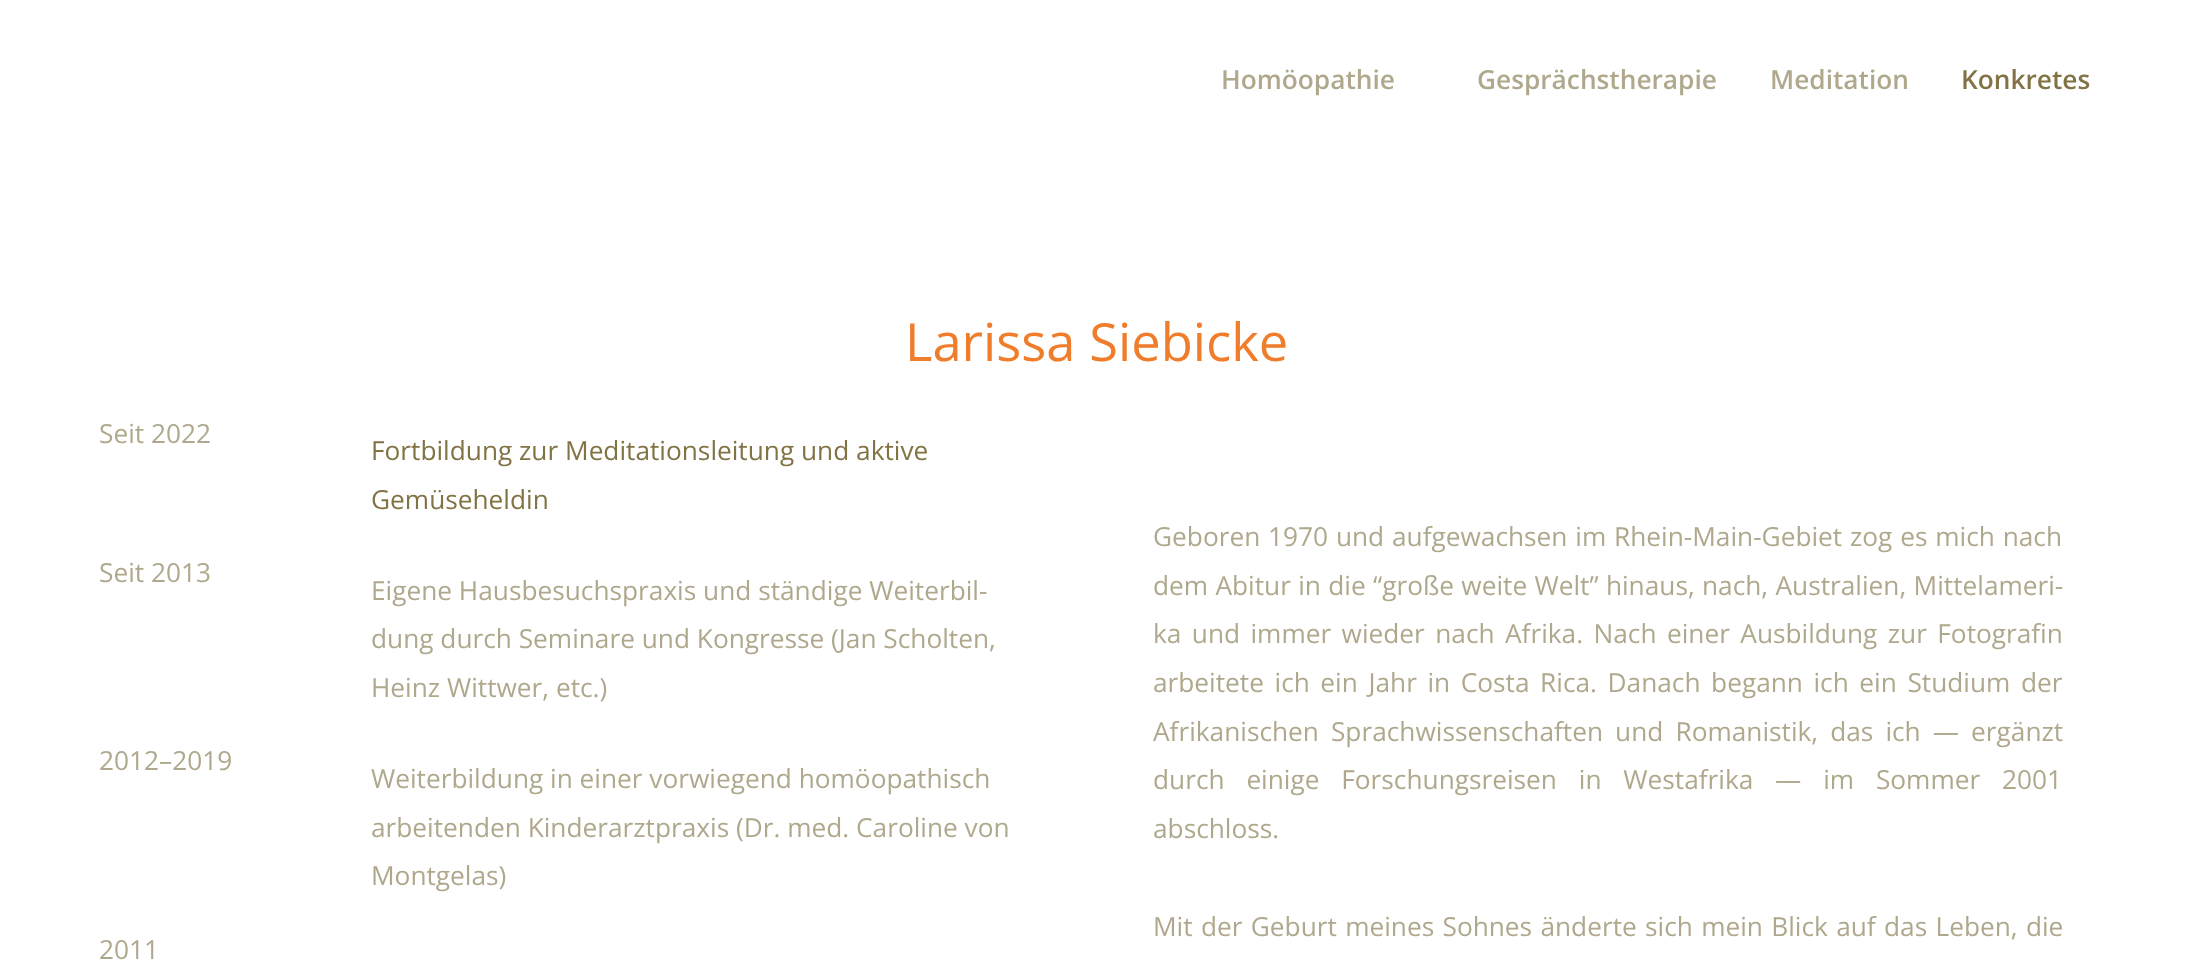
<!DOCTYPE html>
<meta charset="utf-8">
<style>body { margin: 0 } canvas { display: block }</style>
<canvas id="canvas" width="2192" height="968"></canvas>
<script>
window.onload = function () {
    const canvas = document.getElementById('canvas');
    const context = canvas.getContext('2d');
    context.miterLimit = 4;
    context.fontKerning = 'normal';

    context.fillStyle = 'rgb(255, 255, 255)';
    context.fillRect(0, 0, 2192, 968);
    context.font = '600 26.25px Open Sans';
    context.fillStyle = 'rgb(176, 168, 141)';
    context.fillText('Homöopathie', 1221, 89);
    context.fillText('Gesprächstherapie', 1477, 89);
    context.fillText('Meditation', 1770, 89);
    context.fillStyle = 'rgb(129, 115, 68)';
    context.fillText('Konkretes', 1961, 89);
    context.font = '52.5px Open Sans';
    context.fillStyle = 'rgb(240, 125, 43)';
    context.fillText('Larissa Siebicke', 905, 361);
    context.font = '26.25px Open Sans';
    context.fillStyle = 'rgb(176, 168, 141)';
    context.fillText('Seit 2022', 99, 443);
    context.fillText('Seit 2013', 99, 582);
    context.fillText('2012–2019', 99, 770);
    context.fillText('2011', 99, 959);
    context.fillStyle = 'rgb(129, 115, 68)';
    context.fillText('Fortbildung zur Meditationsleitung und aktive', 371, 460);
    context.fillText('Gemüseheldin', 371, 509);
    context.fillStyle = 'rgb(176, 168, 141)';
    context.fillText('Eigene Hausbesuchspraxis und ständige Weiterbil-', 371, 600);
    context.fillText('dung durch Seminare und Kongresse (Jan Scholten,', 371, 648);
    context.fillText('Heinz Wittwer, etc.)', 371, 697);
    context.fillText('Weiterbildung in einer vorwiegend homöopathisch', 371, 788);
    context.fillText('arbeitenden Kinderarztpraxis (Dr. med. Caroline von', 371, 837);
    context.fillText('Montgelas)', 371, 885);
    context.wordSpacing = '1px';
    context.fillText('Geboren 1970 und aufgewachsen im Rhein-Main-Gebiet zog es mich nach', 1153, 546);
    context.wordSpacing = '0.5px';
    context.fillText('dem Abitur in die “große weite Welt” hinaus, nach, Australien, Mittelameri-', 1153, 595);
    context.wordSpacing = '3.6px';
    context.fillText('ka und immer wieder nach Afrika. Nach einer Ausbildung zur Fotografin', 1153, 643);
    context.wordSpacing = '3.75px';
    context.fillText('arbeitete ich ein Jahr in Costa Rica. Danach begann ich ein Studium der', 1153, 692);
    context.wordSpacing = '5.25px';
    context.fillText('Afrikanischen Sprachwissenschaften und Romanistik, das ich — ergänzt', 1153, 741);
    context.wordSpacing = '15px';
    context.fillText('durch einige Forschungsreisen in Westafrika — im Sommer 2001', 1153, 789);
    context.wordSpacing = '0px';
    context.fillText('abschloss.', 1153, 838);
    context.wordSpacing = '1.5px';
    context.fillText('Mit der Geburt meines Sohnes änderte sich mein Blick auf das Leben, die', 1153, 936);
};
</script>
